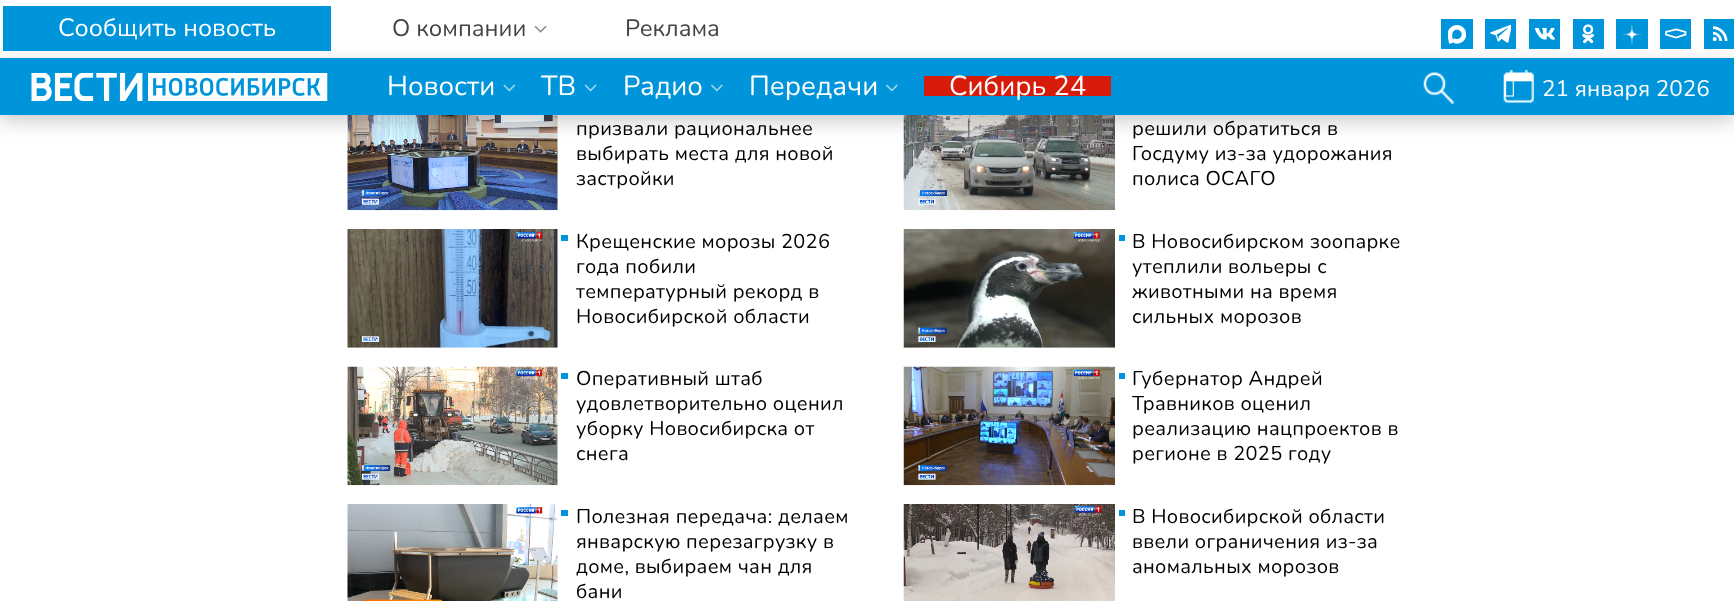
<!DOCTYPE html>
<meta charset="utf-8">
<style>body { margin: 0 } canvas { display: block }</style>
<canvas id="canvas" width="1734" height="601"></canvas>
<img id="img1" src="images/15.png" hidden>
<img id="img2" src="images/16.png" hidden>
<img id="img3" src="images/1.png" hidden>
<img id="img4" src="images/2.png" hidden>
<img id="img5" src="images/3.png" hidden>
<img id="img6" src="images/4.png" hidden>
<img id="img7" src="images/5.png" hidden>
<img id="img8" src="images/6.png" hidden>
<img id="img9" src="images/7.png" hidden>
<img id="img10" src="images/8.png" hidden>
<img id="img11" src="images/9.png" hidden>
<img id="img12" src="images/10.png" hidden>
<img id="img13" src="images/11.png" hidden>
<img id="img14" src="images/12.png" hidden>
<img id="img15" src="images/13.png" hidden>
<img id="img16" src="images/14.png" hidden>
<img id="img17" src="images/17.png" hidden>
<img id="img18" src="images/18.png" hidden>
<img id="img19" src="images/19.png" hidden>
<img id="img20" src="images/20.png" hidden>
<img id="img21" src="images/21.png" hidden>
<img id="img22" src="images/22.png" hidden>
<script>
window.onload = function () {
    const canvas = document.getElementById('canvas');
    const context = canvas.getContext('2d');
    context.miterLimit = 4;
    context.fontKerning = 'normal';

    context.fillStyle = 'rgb(255, 255, 255)';
    context.fillRect(0, 0, 1734, 601);
    context.drawImage(document.getElementById('img1'), 347, 115, 211, 96);
    context.drawImage(document.getElementById('img2'), 903, 115, 212, 96);
    context.fillStyle = 'rgba(0, 0, 0, 0.2)';
    context.filter = 'blur(9.5px)';
    context.beginPath();
    context.rect(0, 64, 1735, 57);
    context.fill();
    context.filter = 'none';
    context.fillStyle = 'rgb(0, 149, 218)';
    context.fillRect(3, 6, 328, 45);
    context.drawImage(document.getElementById('img3'), 534, 25, 13, 8);
    context.fillRect(1441, 19, 32, 30);
    context.drawImage(document.getElementById('img4'), 1448, 25, 18, 19);
    context.fillRect(1485, 19, 31, 30);
    context.drawImage(document.getElementById('img5'), 1490, 24, 21, 19);
    context.fillRect(1529, 19, 31, 30);
    context.drawImage(document.getElementById('img6'), 1535, 27, 20, 13);
    context.fillRect(1573, 19, 31, 30);
    context.drawImage(document.getElementById('img7'), 1582, 24, 12, 20);
    context.fillRect(1616, 19, 32, 30);
    context.drawImage(document.getElementById('img8'), 1623, 25, 18, 19);
    context.fillRect(1660, 19, 31, 30);
    context.beginPath();
    context.moveTo(1666, 34.5);
    context.lineTo(1666, 32);
    context.lineTo(1676, 29.5);
    context.lineTo(1685.5, 32);
    context.lineTo(1685.5, 34.5);
    context.lineTo(1676, 37.5);
    context.closePath();
    context.strokeStyle = 'rgb(255, 255, 255)';
    context.lineWidth = 1.8;
    context.stroke();
    context.fillRect(1704, 19, 30, 30);
    context.drawImage(document.getElementById('img9'), 1713, 26, 15, 15);
    context.fillRect(0, 58, 1734, 57);
    context.drawImage(document.getElementById('img10'), 31, 73, 297, 28);
    context.drawImage(document.getElementById('img11'), 503, 84, 13, 8);
    context.drawImage(document.getElementById('img12'), 584, 84, 13, 8);
    context.drawImage(document.getElementById('img13'), 711, 84, 12, 8);
    context.drawImage(document.getElementById('img13'), 886, 84, 12, 8);
    context.fillStyle = 'rgb(215, 28, 11)';
    context.fillRect(924, 76, 187, 20);
    context.drawImage(document.getElementById('img14'), 1423, 72, 31, 32);
    context.drawImage(document.getElementById('img15'), 1503, 70, 31, 33);
    context.drawImage(document.getElementById('img16'), 1505, 81, 9, 16);
    context.drawImage(document.getElementById('img17'), 347, 229, 211, 119);
    context.fillStyle = 'rgb(0, 149, 218)';
    context.fillRect(561, 235, 7, 6);
    context.drawImage(document.getElementById('img18'), 903, 229, 212, 119);
    context.fillRect(1119, 235, 6, 6);
    context.drawImage(document.getElementById('img19'), 347, 366, 211, 120);
    context.fillRect(561, 373, 7, 6);
    context.drawImage(document.getElementById('img20'), 903, 366, 212, 120);
    context.fillRect(1119, 373, 6, 6);
    context.drawImage(document.getElementById('img21'), 347, 504, 211, 97);
    context.fillRect(561, 510, 7, 6);
    context.drawImage(document.getElementById('img22'), 903, 504, 212, 97);
    context.fillRect(1119, 510, 6, 6);
    context.font = '25px Nunito';
    context.fillStyle = 'rgb(255, 255, 255)';
    context.fillText('Сообщить новость', 58, 36);
    context.font = '23.75px Nunito';
    context.fillStyle = 'rgb(68, 68, 68)';
    context.fillText('О компании', 392, 36);
    context.fillText('Реклама', 625, 36);
    context.font = '27.5px Nunito';
    context.fillStyle = 'rgb(255, 255, 255)';
    context.fillText('Новости', 387, 95);
    context.fillText('ТВ', 541, 95);
    context.fillText('Радио', 623, 95);
    context.fillText('Передачи', 749, 95);
    context.fillText('Сибирь 24', 949, 95);
    context.font = '22.5px Nunito';
    context.fillText('21 января 2026', 1542, 96);
    context.letterSpacing = '0.3px';
    context.font = '20px Nunito';
    context.fillStyle = 'rgb(0, 0, 0)';
    context.fillText('призвали рациональнее', 576, 135);
    context.fillText('выбирать места для новой', 576, 160);
    context.fillText('застройки', 576, 185);
    context.fillText('решили обратиться в', 1132, 135);
    context.fillText('Госдуму из-за удорожания', 1132, 160);
    context.fillText('полиса ОСАГО', 1132, 185);
    context.fillText('Крещенские морозы 2026', 576, 248);
    context.fillText('года побили', 576, 273);
    context.fillText('температурный рекорд в', 576, 298);
    context.fillText('Новосибирской области', 576, 323);
    context.fillText('В Новосибирском зоопарке', 1132, 248);
    context.fillText('утеплили вольеры с', 1132, 273);
    context.fillText('животными на время', 1132, 298);
    context.fillText('сильных морозов', 1132, 323);
    context.fillText('Оперативный штаб', 576, 385);
    context.fillText('удовлетворительно оценил', 576, 410);
    context.fillText('уборку Новосибирска от', 576, 435);
    context.fillText('снега', 576, 460);
    context.fillText('Губернатор Андрей', 1132, 385);
    context.fillText('Травников оценил', 1132, 410);
    context.fillText('реализацию нацпроектов в', 1132, 435);
    context.fillText('регионе в 2025 году', 1132, 460);
    context.fillText('Полезная передача: делаем', 576, 523);
    context.fillText('январскую перезагрузку в', 576, 548);
    context.fillText('доме, выбираем чан для', 576, 573);
    context.fillText('бани', 576, 598);
    context.fillText('В Новосибирской области', 1132, 523);
    context.fillText('ввели ограничения из-за', 1132, 548);
    context.fillText('аномальных морозов', 1132, 573);
};
</script>
